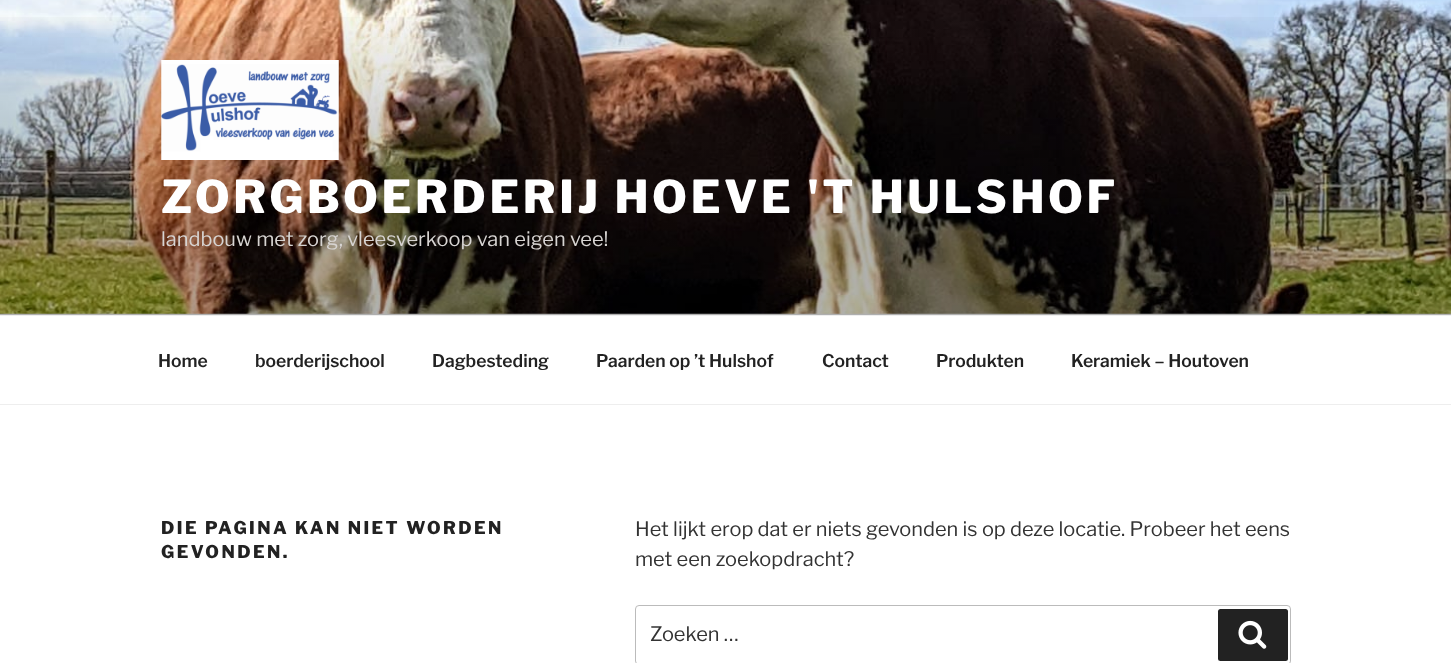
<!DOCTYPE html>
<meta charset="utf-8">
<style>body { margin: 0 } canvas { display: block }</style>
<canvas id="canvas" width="1451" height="663"></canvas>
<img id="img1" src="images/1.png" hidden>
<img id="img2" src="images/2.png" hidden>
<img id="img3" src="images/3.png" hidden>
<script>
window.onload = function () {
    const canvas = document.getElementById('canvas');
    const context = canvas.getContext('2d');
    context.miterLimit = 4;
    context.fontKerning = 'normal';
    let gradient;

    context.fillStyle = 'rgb(255, 255, 255)';
    context.fillRect(0, 0, 1451, 663);
    context.fillStyle = 'rgb(250, 250, 250)';
    context.fillRect(0, 313, 1451, 2);
    context.drawImage(document.getElementById('img1'), 0, 0, 1451, 314);
    gradient = context.createLinearGradient(726, 0, 726, 315);
    gradient.addColorStop(0, 'rgba(0, 0, 0, 0)');
    gradient.addColorStop(0.75, 'rgba(0, 0, 0, 0.3)');
    gradient.addColorStop(1, 'rgba(0, 0, 0, 0.3)');
    context.fillStyle = gradient;
    context.fillRect(0, 17, 1451, 298);
    context.drawImage(document.getElementById('img2'), 161, 60, 178, 100);
    context.fillStyle = 'rgb(238, 238, 238)';
    context.fillRect(0, 315, 1451, 1);
    context.fillRect(0, 404, 1451, 1);
    context.beginPath();
    context.roundRect(635.5, 605.5, 655, 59, 3.5);
    context.strokeStyle = 'rgb(187, 187, 187)';
    context.stroke();
    context.fillStyle = 'rgb(34, 34, 34)';
    context.beginPath();
    context.roundRect(1218, 609, 70, 52, 2.5);
    context.fill();
    context.drawImage(document.getElementById('img3'), 1238, 620, 29, 29);
    context.letterSpacing = '3.6px';
    context.font = '100 45px Libre Franklin';
    context.fillStyle = 'rgb(255, 255, 255)';
    context.fillText('ZORGBOERDERIJ HOEVE \'T HULSHOF', 161, 213);
    context.letterSpacing = '0px';
    context.font = '100 20px "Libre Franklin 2"';
    context.fillStyle = 'rgb(215, 212, 210)';
    context.fillText('landbouw met zorg, vleesverkoop van eigen vee!', 161, 246);
    context.font = '100 17.5px "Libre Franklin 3"';
    context.fillStyle = 'rgb(34, 34, 34)';
    context.fillText('Home', 158, 367);
    context.fillText('boerderijschool', 255, 367);
    context.fillText('Dagbesteding', 432, 367);
    context.fillText('Paarden op ’t Hulshof', 596, 367);
    context.fillText('Contact', 822, 367);
    context.fillText('Produkten', 936, 367);
    context.fillText('Keramiek – Houtoven', 1071, 367);
    context.letterSpacing = '2.45px';
    context.font = '100 17.5px Libre Franklin';
    context.fillText('DIE PAGINA KAN NIET WORDEN', 161, 534);
    context.fillText('GEVONDEN.', 161, 558);
    context.letterSpacing = '0px';
    context.font = '100 20px "Libre Franklin 2"';
    context.fillStyle = 'rgb(51, 51, 51)';
    context.fillText('Het lijkt erop dat er niets gevonden is op deze locatie. Probeer het eens', 635, 536);
    context.fillText('met een zoekopdracht?', 635, 566);
    context.fillText('Zoeken …', 650, 641);
};
</script>
